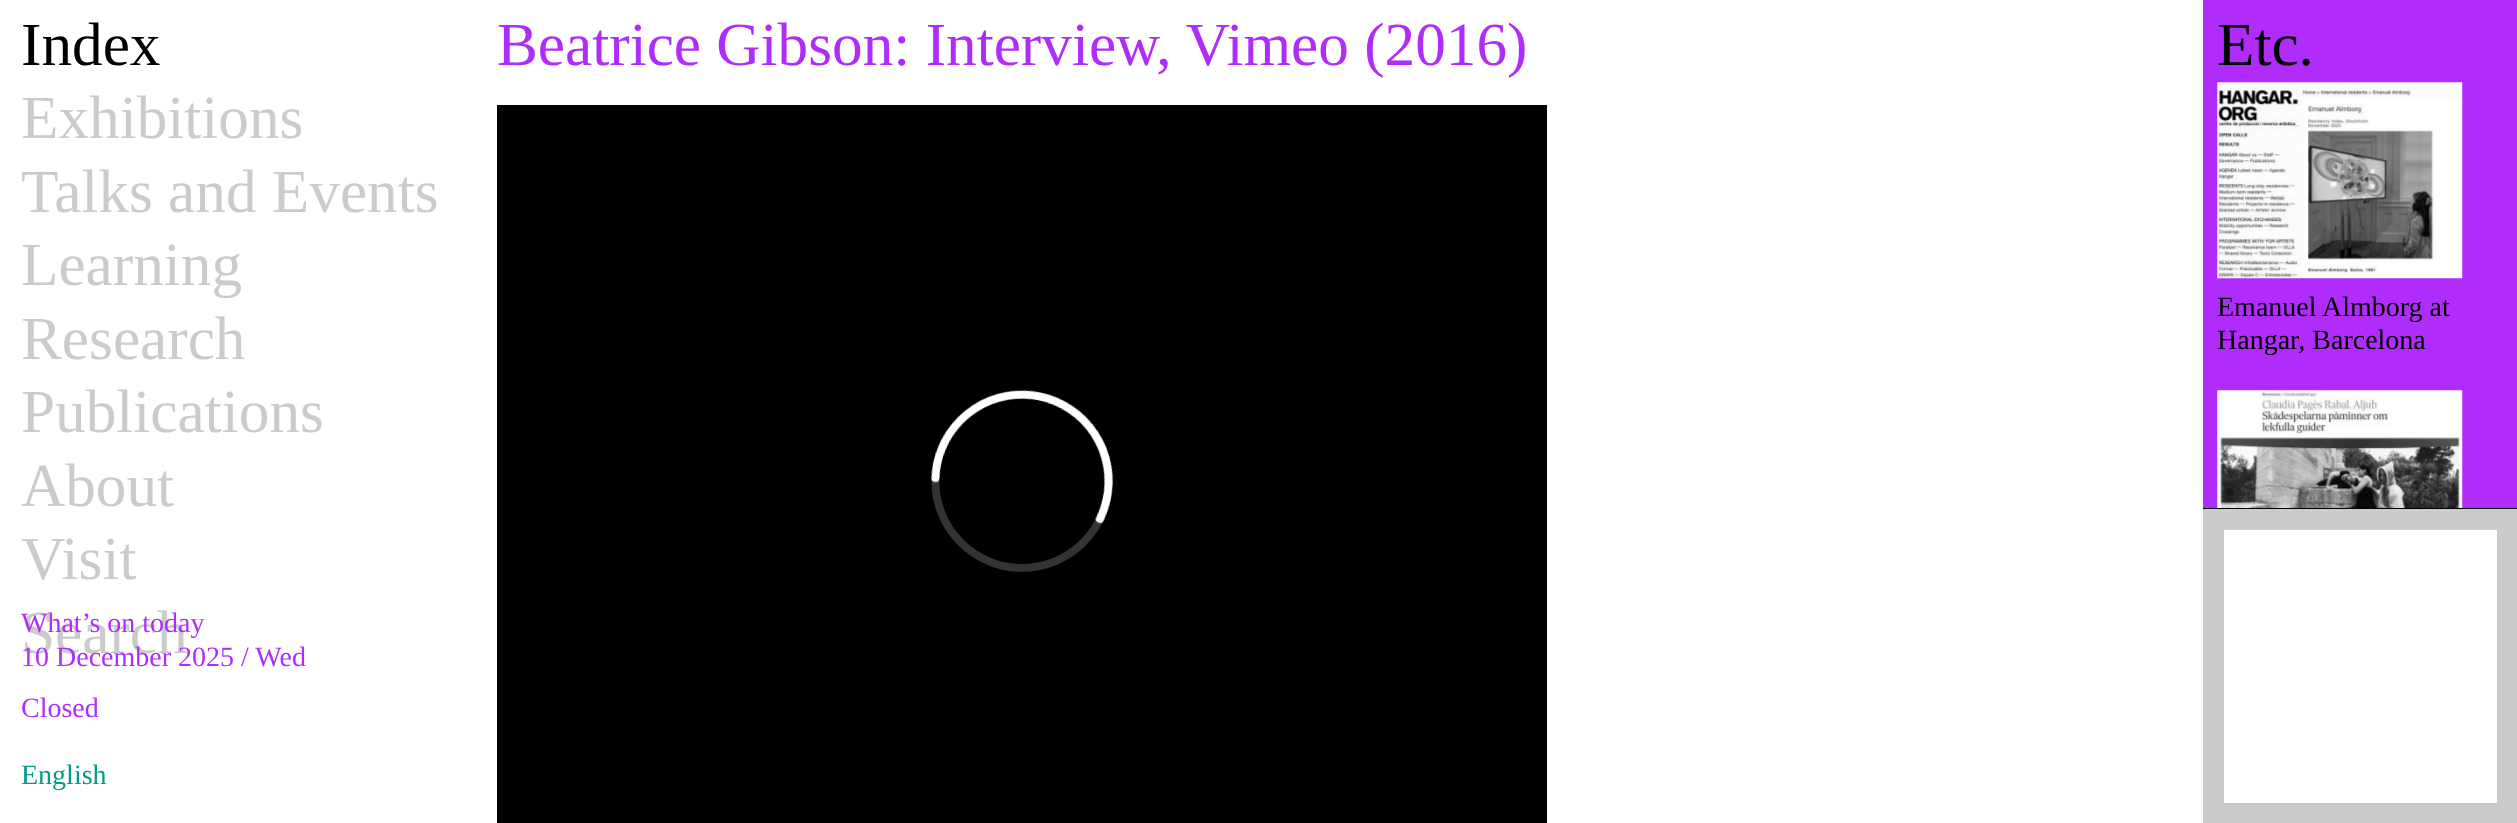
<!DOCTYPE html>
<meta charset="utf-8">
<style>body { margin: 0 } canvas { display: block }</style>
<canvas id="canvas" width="2517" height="823"></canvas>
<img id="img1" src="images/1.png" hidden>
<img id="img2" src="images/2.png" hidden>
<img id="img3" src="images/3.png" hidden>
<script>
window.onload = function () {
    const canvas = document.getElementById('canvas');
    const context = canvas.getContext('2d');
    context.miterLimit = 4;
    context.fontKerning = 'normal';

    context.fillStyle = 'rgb(255, 255, 255)';
    context.fillRect(0, 0, 2517, 823);
    context.drawImage(document.getElementById('img1'), 497, 105, 1050, 718);
    context.fillStyle = 'rgb(176, 44, 251)';
    context.fillRect(2203, 0, 314, 508);
    context.fillStyle = 'rgb(0, 0, 0)';
    context.fillRect(2203, 508, 314, 1);
    context.drawImage(document.getElementById('img2'), 2217, 82, 246, 197);
    context.drawImage(document.getElementById('img3'), 2217, 390, 246, 118);
    context.fillStyle = 'rgb(203, 203, 203)';
    context.fillRect(2203, 509, 314, 314);
    context.fillStyle = 'rgb(255, 255, 255)';
    context.fillRect(2224, 530, 273, 273);
    context.font = '61.25px Liberation Serif';
    context.fillStyle = 'rgb(0, 0, 0)';
    context.fillText('Index', 21, 65);
    context.fillStyle = 'rgb(203, 203, 203)';
    context.fillText('Exhibitions', 21, 138);
    context.fillText('Talks and Events', 21, 212);
    context.fillText('Learning', 21, 285);
    context.fillText('Research', 21, 359);
    context.fillText('Publications', 21, 432);
    context.fillText('About', 21, 506);
    context.fillText('Visit', 21, 579);
    context.fillText('Search', 21, 653);
    context.font = '28px Liberation Serif';
    context.fillStyle = 'rgb(176, 44, 251)';
    context.fillText('What’s on today', 21, 632);
    context.fillText('10 December 2025 / Wed', 21, 666);
    context.fillText('Closed', 21, 717);
    context.fillStyle = 'rgb(0, 156, 135)';
    context.fillText('English', 21, 784);
    context.font = '61.25px Liberation Serif';
    context.fillStyle = 'rgb(176, 44, 251)';
    context.fillText('Beatrice Gibson: Interview, Vimeo (2016)', 497, 65);
    context.fillStyle = 'rgb(0, 0, 0)';
    context.fillText('Etc.', 2217, 65);
    context.font = '28px Liberation Serif';
    context.fillText('Emanuel Almborg at', 2217, 316);
    context.fillText('Hangar, Barcelona', 2217, 349);
};
</script>
